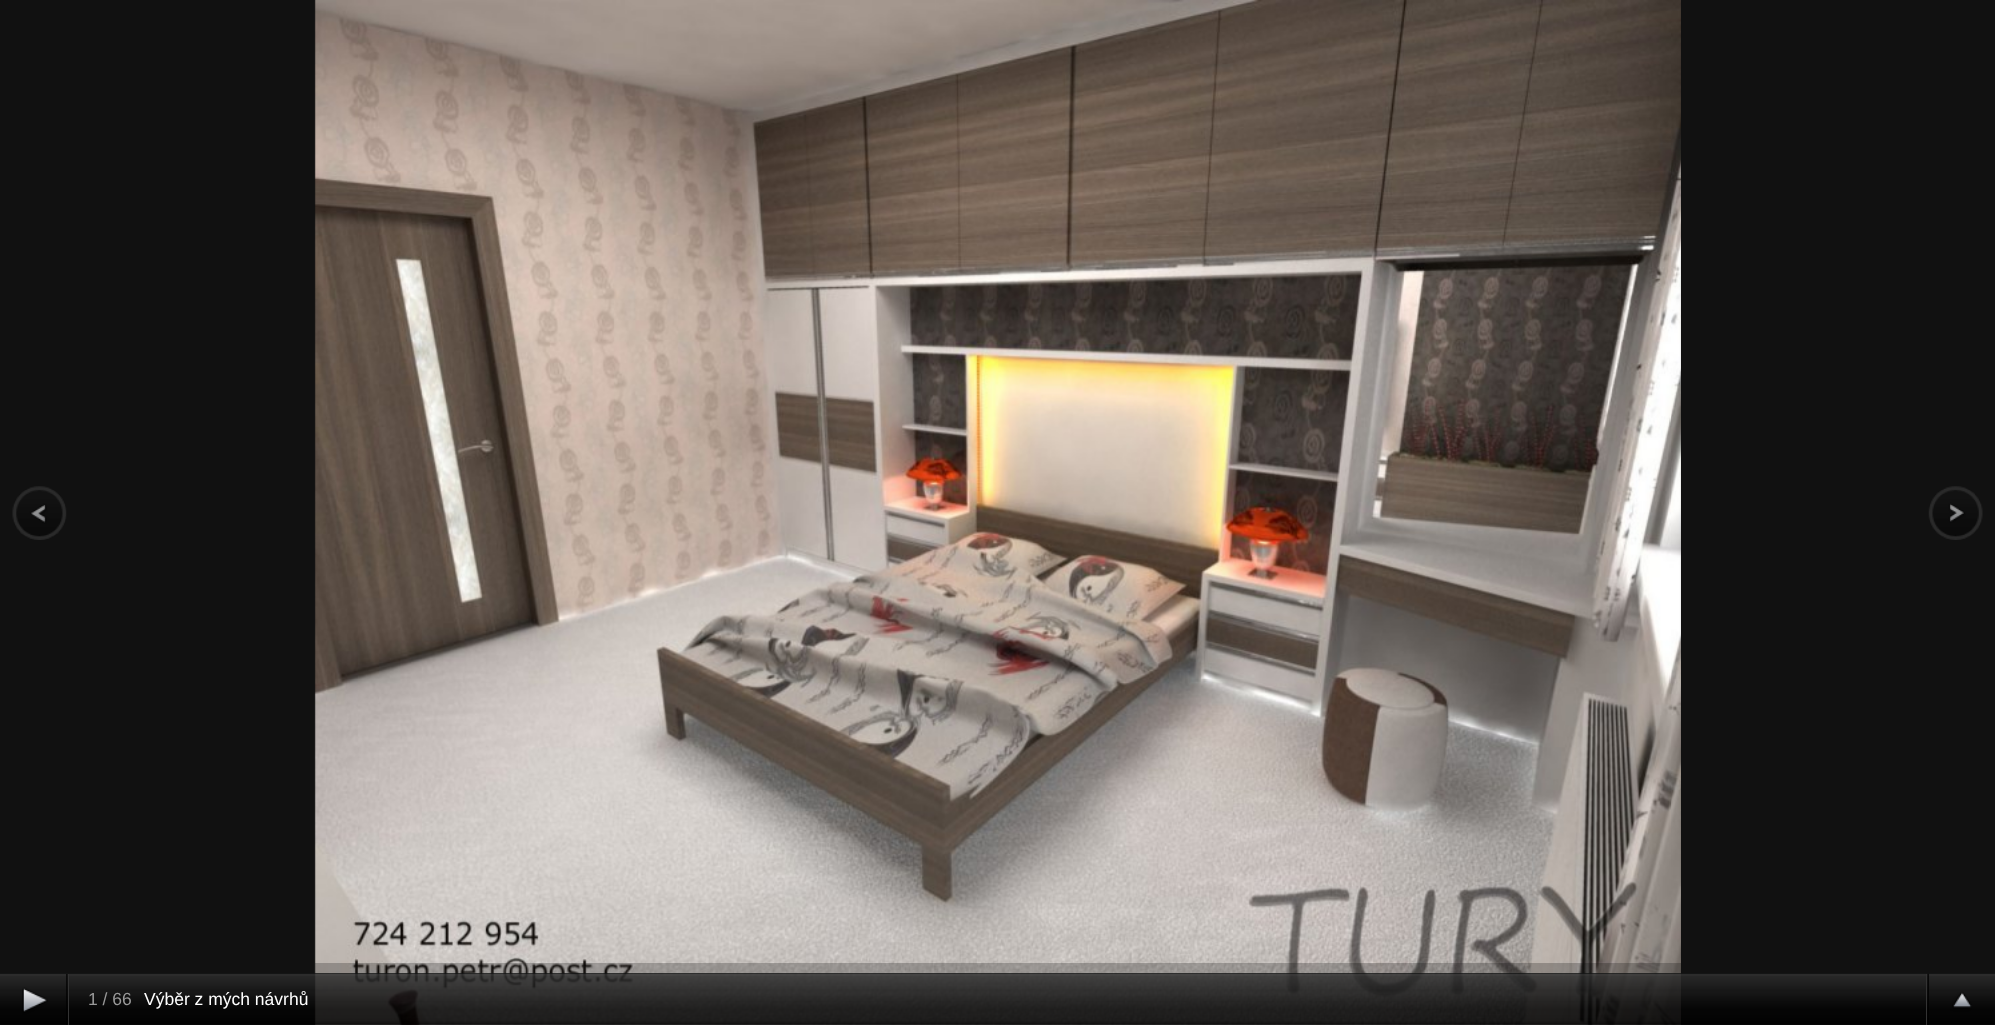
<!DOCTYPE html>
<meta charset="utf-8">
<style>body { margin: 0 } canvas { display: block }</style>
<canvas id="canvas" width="1995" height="1025"></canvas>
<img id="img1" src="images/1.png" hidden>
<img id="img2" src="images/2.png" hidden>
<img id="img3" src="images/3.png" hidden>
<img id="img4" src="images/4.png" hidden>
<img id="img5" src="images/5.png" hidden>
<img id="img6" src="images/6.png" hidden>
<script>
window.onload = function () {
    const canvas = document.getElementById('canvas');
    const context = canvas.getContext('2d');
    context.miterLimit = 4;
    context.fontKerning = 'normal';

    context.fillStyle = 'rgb(17, 17, 17)';
    context.fillRect(0, 0, 1995, 1025);
    context.drawImage(document.getElementById('img1'), 12, 486, 55, 54);
    context.drawImage(document.getElementById('img2'), 314, 0, 1367, 1025);
    context.drawImage(document.getElementById('img3'), 1928, 486, 55, 54);
    context.fillStyle = 'rgba(16, 16, 16, 0.25)';
    context.fillRect(315, 963, 1366, 10);
    context.fillStyle = 'rgb(0, 0, 0)';
    context.filter = 'blur(2.5px)';
    context.beginPath();
    context.rect(0, 1025, 1995, 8);
    context.fill();
    context.filter = 'none';
    context.drawImage(document.getElementById('img4'), 0, 973, 1995, 52);
    context.fillStyle = 'rgb(51, 51, 51)';
    context.fillRect(68, 974, 1, 51);
    context.drawImage(document.getElementById('img5'), 22, 974, 46, 51);
    context.fillRect(1926, 974, 1, 51);
    context.drawImage(document.getElementById('img6'), 1927, 973, 45, 52);
    context.font = '17.5px Liberation Sans';
    context.fillStyle = 'rgb(153, 153, 153)';
    context.fillText('1 / 66', 88, 1005);
    context.fillStyle = 'rgb(255, 255, 255)';
    context.fillText('Výběr z mých návrhů', 144, 1005);
};
</script>
